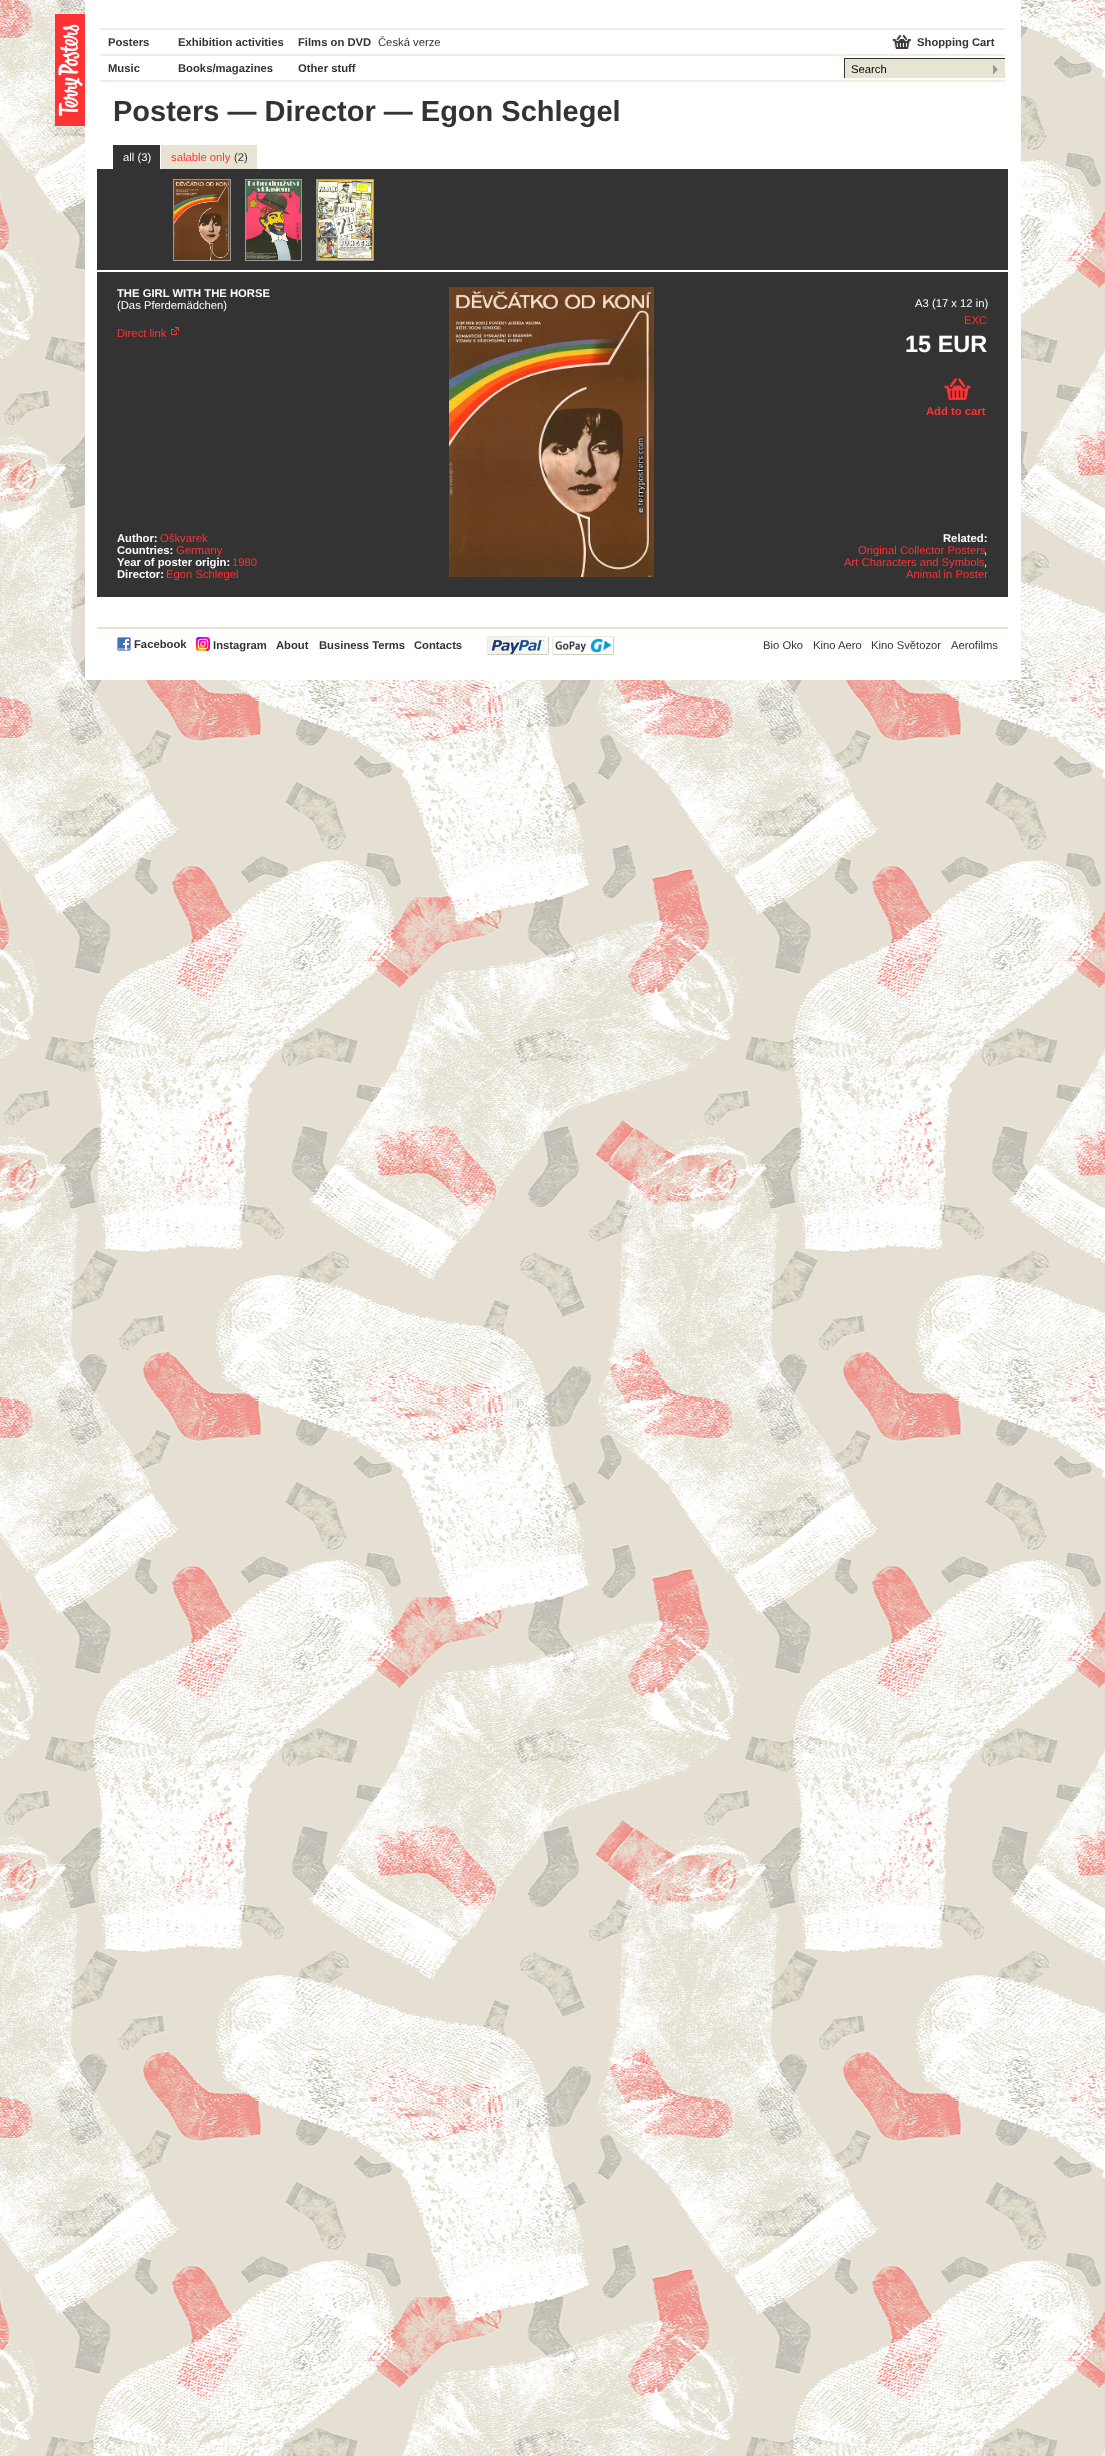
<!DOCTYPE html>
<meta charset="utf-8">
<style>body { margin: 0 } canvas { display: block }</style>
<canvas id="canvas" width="1105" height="2456"></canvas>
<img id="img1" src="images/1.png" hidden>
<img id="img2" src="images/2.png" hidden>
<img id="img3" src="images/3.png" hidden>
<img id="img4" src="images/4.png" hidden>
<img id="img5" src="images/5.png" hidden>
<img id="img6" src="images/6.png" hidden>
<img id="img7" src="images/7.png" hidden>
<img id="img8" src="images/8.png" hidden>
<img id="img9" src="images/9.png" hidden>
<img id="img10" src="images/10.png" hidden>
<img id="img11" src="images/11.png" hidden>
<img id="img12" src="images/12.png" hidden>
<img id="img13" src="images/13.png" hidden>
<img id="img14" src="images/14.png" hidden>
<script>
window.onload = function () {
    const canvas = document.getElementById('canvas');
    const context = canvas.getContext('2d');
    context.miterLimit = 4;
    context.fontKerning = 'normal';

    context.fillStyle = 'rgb(255, 255, 255)';
    context.fillRect(0, 0, 1105, 2456);
    context.drawImage(document.getElementById('img1'), 0, 0, 1105, 2456);
    context.fillStyle = 'rgb(255, 51, 51)';
    context.fillRect(55, 14, 30, 112);
    context.drawImage(document.getElementById('img2'), 58, 24, 25, 92);
    context.fillStyle = 'rgb(255, 255, 255)';
    context.fillRect(85, 0, 936, 680);
    context.drawImage(document.getElementById('img3'), 100, 28, 905, 54);
    context.drawImage(document.getElementById('img4'), 892, 35, 19, 14);
    context.fillStyle = 'rgb(231, 228, 211)';
    context.fillRect(845, 59, 160, 19);
    context.fillStyle = 'rgb(51, 51, 51)';
    context.fillRect(844, 58, 161, 1);
    context.fillRect(844, 58, 1, 20);
    context.drawImage(document.getElementById('img5'), 993, 65, 5, 9);
    context.fillRect(113, 145, 47, 24);
    context.fillStyle = 'rgb(231, 228, 211)';
    context.fillRect(161, 145, 96, 24);
    context.fillStyle = 'rgb(51, 51, 51)';
    context.fillRect(97, 169, 911, 101);
    context.strokeStyle = 'rgb(153, 153, 153)';
    context.strokeRect(173.5, 179.5, 57, 81);
    context.drawImage(document.getElementById('img6'), 174, 180, 56, 80);
    context.strokeRect(245.5, 179.5, 56, 81);
    context.drawImage(document.getElementById('img7'), 246, 180, 55, 80);
    context.strokeRect(316.5, 179.5, 57, 81);
    context.drawImage(document.getElementById('img8'), 317, 180, 56, 80);
    context.fillRect(97, 272, 911, 325);
    context.drawImage(document.getElementById('img9'), 171, 327, 8, 8);
    context.drawImage(document.getElementById('img10'), 449, 287, 205, 290);
    context.drawImage(document.getElementById('img11'), 944, 378, 27, 22);
    context.fillStyle = 'rgb(231, 228, 211)';
    context.fillRect(97, 627, 911, 2);
    context.drawImage(document.getElementById('img12'), 117, 637, 14, 14);
    context.drawImage(document.getElementById('img13'), 196, 637, 14, 14);
    context.drawImage(document.getElementById('img14'), 487, 636, 127, 19);
    context.font = 'bold 11.25px Liberation Sans';
    context.fillStyle = 'rgb(51, 51, 51)';
    context.fillText('Posters', 108, 46);
    context.fillText('Exhibition activities', 178, 46);
    context.fillText('Films on DVD', 298, 46);
    context.font = '11.25px Liberation Sans';
    context.fillText('Česká verze', 378, 46);
    context.font = 'bold 11.25px Liberation Sans';
    context.fillText('Music', 108, 72);
    context.fillText('Books/magazines', 178, 72);
    context.fillText('Other stuff', 298, 72);
    context.fillText('Shopping Cart', 917, 46);
    context.font = '11.25px Liberation Sans';
    context.fillStyle = 'rgb(0, 0, 0)';
    context.fillText('Search', 851, 73);
    context.font = 'bold 29px Liberation Sans';
    context.fillStyle = 'rgb(51, 51, 51)';
    context.fillText('Posters — Director — Egon Schlegel', 113, 121);
    context.font = '11.25px Liberation Sans';
    context.fillStyle = 'rgb(255, 255, 255)';
    context.fillText('all (3)', 123, 161);
    context.fillStyle = 'rgb(255, 51, 51)';
    context.fillText('salable only', 171, 161);
    context.fillStyle = 'rgb(51, 51, 51)';
    context.fillText('(2)', 234, 161);
    context.font = 'bold 11.25px Liberation Sans';
    context.fillStyle = 'rgb(255, 255, 255)';
    context.fillText('THE GIRL WITH THE HORSE', 117, 297);
    context.font = '11.25px Liberation Sans';
    context.fillText('(Das Pferdemädchen)', 117, 309);
    context.fillStyle = 'rgb(255, 51, 51)';
    context.fillText('Direct link', 117, 337);
    context.font = 'bold 11.25px Liberation Sans';
    context.fillStyle = 'rgb(255, 255, 255)';
    context.fillText('Author:', 117, 542);
    context.font = '11.25px Liberation Sans';
    context.fillStyle = 'rgb(255, 51, 51)';
    context.fillText('Oškvarek', 160, 542);
    context.font = 'bold 11.25px Liberation Sans';
    context.fillStyle = 'rgb(255, 255, 255)';
    context.fillText('Countries:', 117, 554);
    context.font = '11.25px Liberation Sans';
    context.fillStyle = 'rgb(255, 51, 51)';
    context.fillText('Germany', 176, 554);
    context.font = 'bold 11.25px Liberation Sans';
    context.fillStyle = 'rgb(255, 255, 255)';
    context.fillText('Year of poster origin:', 117, 566);
    context.font = '11.25px Liberation Sans';
    context.fillStyle = 'rgb(255, 51, 51)';
    context.fillText('1980', 232, 566);
    context.font = 'bold 11.25px Liberation Sans';
    context.fillStyle = 'rgb(255, 255, 255)';
    context.fillText('Director:', 117, 578);
    context.font = '11.25px Liberation Sans';
    context.fillStyle = 'rgb(255, 51, 51)';
    context.fillText('Egon Schlegel', 166, 578);
    context.fillStyle = 'rgb(255, 255, 255)';
    context.fillText('A3 (17 x 12 in)', 915, 307);
    context.fillStyle = 'rgb(255, 51, 51)';
    context.fillText('EXC', 964, 324);
    context.font = 'bold 23.5px Liberation Sans';
    context.fillStyle = 'rgb(255, 255, 255)';
    context.fillText('15 EUR', 905, 352);
    context.font = 'bold 11.25px Liberation Sans';
    context.fillStyle = 'rgb(255, 51, 51)';
    context.fillText('Add to cart', 926, 415);
    context.fillStyle = 'rgb(255, 255, 255)';
    context.fillText('Related:', 943, 542);
    context.font = '11.25px Liberation Sans';
    context.fillStyle = 'rgb(255, 51, 51)';
    context.fillText('Original Collector Posters', 858, 554);
    context.fillStyle = 'rgb(255, 255, 255)';
    context.fillText(',', 984, 554);
    context.fillStyle = 'rgb(255, 51, 51)';
    context.fillText('Art Characters and Symbols', 844, 566);
    context.fillStyle = 'rgb(255, 255, 255)';
    context.fillText(',', 984, 566);
    context.fillStyle = 'rgb(255, 51, 51)';
    context.fillText('Animal in Poster', 906, 578);
    context.font = 'bold 11.25px Liberation Sans';
    context.fillStyle = 'rgb(51, 51, 51)';
    context.fillText('Facebook', 134, 648);
    context.fillText('Instagram', 213, 649);
    context.fillText('About', 276, 649);
    context.fillText('Business Terms', 319, 649);
    context.fillText('Contacts', 414, 649);
    context.font = '11.25px Liberation Sans';
    context.fillText('Bio Oko', 763, 649);
    context.fillText('Kino Aero', 813, 649);
    context.fillText('Kino Světozor', 871, 649);
    context.fillText('Aerofilms', 951, 649);
};
</script>
